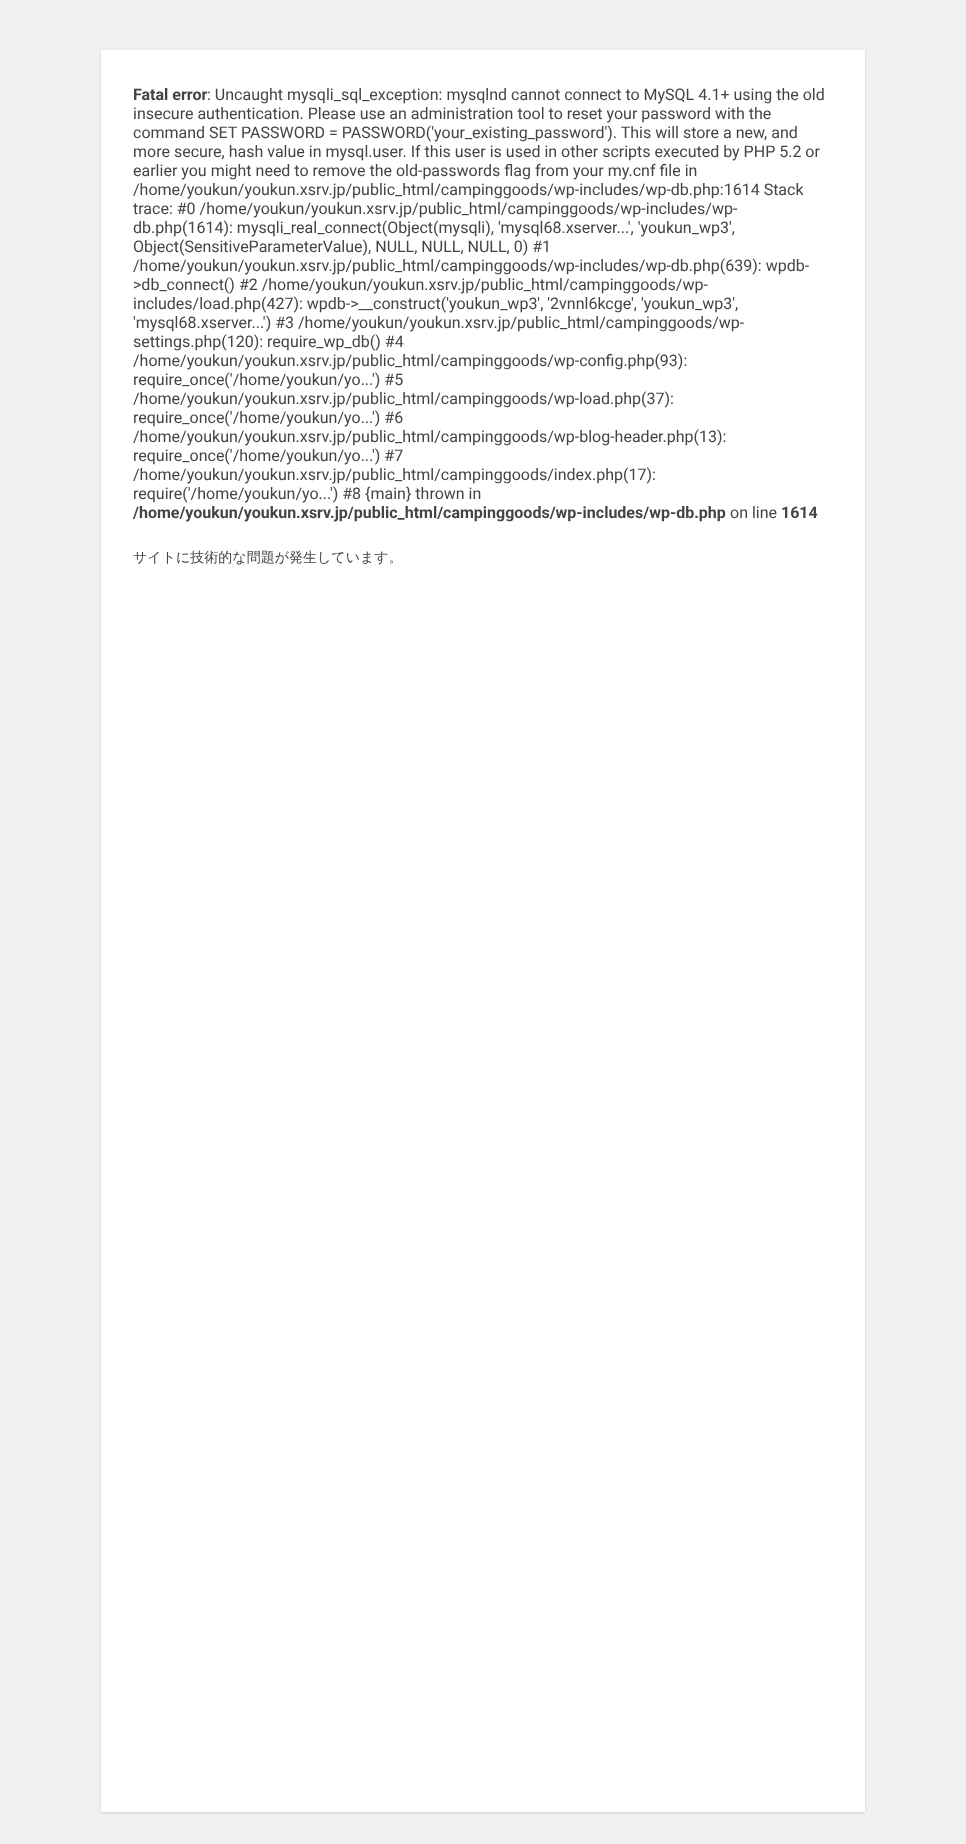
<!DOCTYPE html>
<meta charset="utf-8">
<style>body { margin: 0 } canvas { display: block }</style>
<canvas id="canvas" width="966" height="1844"></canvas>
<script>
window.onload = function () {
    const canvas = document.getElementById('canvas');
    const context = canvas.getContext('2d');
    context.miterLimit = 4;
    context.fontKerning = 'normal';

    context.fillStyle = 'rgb(241, 241, 241)';
    context.fillRect(0, 0, 966, 1844);
    context.fillStyle = 'rgba(0, 0, 0, 0.13)';
    context.filter = 'blur(1.5px)';
    context.beginPath();
    context.rect(101, 51, 764, 1762);
    context.fill();
    context.filter = 'none';
    context.fillStyle = 'rgb(255, 255, 255)';
    context.fillRect(101, 50, 764, 1762);
    context.font = 'bold 16px Roboto';
    context.fillStyle = 'rgb(68, 68, 68)';
    context.fillText('Fatal error', 133, 100);
    context.font = '16px Roboto';
    context.fillText(': Uncaught mysqli_sql_exception: mysqlnd cannot connect to MySQL 4.1+ using the old', 207, 100);
    context.fillText('insecure authentication. Please use an administration tool to reset your password with the', 133, 119);
    context.fillText('command SET PASSWORD = PASSWORD(\'your_existing_password\'). This will store a new, and', 133, 138);
    context.fillText('more secure, hash value in mysql.user. If this user is used in other scripts executed by PHP 5.2 or', 133, 157);
    context.fillText('earlier you might need to remove the old-passwords flag from your my.cnf file in', 133, 176);
    context.fillText('/home/youkun/youkun.xsrv.jp/public_html/campinggoods/wp-includes/wp-db.php:1614 Stack', 133, 195);
    context.fillText('trace: #0 /home/youkun/youkun.xsrv.jp/public_html/campinggoods/wp-includes/wp-', 133, 214);
    context.fillText('db.php(1614): mysqli_real_connect(Object(mysqli), \'mysql68.xserver...\', \'youkun_wp3\',', 133, 233);
    context.fillText('Object(SensitiveParameterValue), NULL, NULL, NULL, 0) #1', 133, 252);
    context.fillText('/home/youkun/youkun.xsrv.jp/public_html/campinggoods/wp-includes/wp-db.php(639): wpdb-', 133, 271);
    context.fillText('>db_connect() #2 /home/youkun/youkun.xsrv.jp/public_html/campinggoods/wp-', 133, 290);
    context.fillText('includes/load.php(427): wpdb->__construct(\'youkun_wp3\', \'2vnnl6kcge\', \'youkun_wp3\',', 133, 309);
    context.fillText('\'mysql68.xserver...\') #3 /home/youkun/youkun.xsrv.jp/public_html/campinggoods/wp-', 133, 328);
    context.fillText('settings.php(120): require_wp_db() #4', 133, 347);
    context.fillText('/home/youkun/youkun.xsrv.jp/public_html/campinggoods/wp-config.php(93):', 133, 366);
    context.fillText('require_once(\'/home/youkun/yo...\') #5', 133, 385);
    context.fillText('/home/youkun/youkun.xsrv.jp/public_html/campinggoods/wp-load.php(37):', 133, 404);
    context.fillText('require_once(\'/home/youkun/yo...\') #6', 133, 423);
    context.fillText('/home/youkun/youkun.xsrv.jp/public_html/campinggoods/wp-blog-header.php(13):', 133, 442);
    context.fillText('require_once(\'/home/youkun/yo...\') #7', 133, 461);
    context.fillText('/home/youkun/youkun.xsrv.jp/public_html/campinggoods/index.php(17):', 133, 480);
    context.fillText('require(\'/home/youkun/yo...\') #8 {main} thrown in', 133, 499);
    context.font = 'bold 16px Roboto';
    context.fillText('/home/youkun/youkun.xsrv.jp/public_html/campinggoods/wp-includes/wp-db.php', 133, 518);
    context.font = '16px Roboto';
    context.fillText('on line', 730, 518);
    context.font = 'bold 16px Roboto';
    context.fillText('1614', 781, 518);
    context.font = '500 14px WenQuanYi Zen Hei';
    context.fillText('サイトに技術的な問題が発生しています。', 133, 562);
};
</script>
